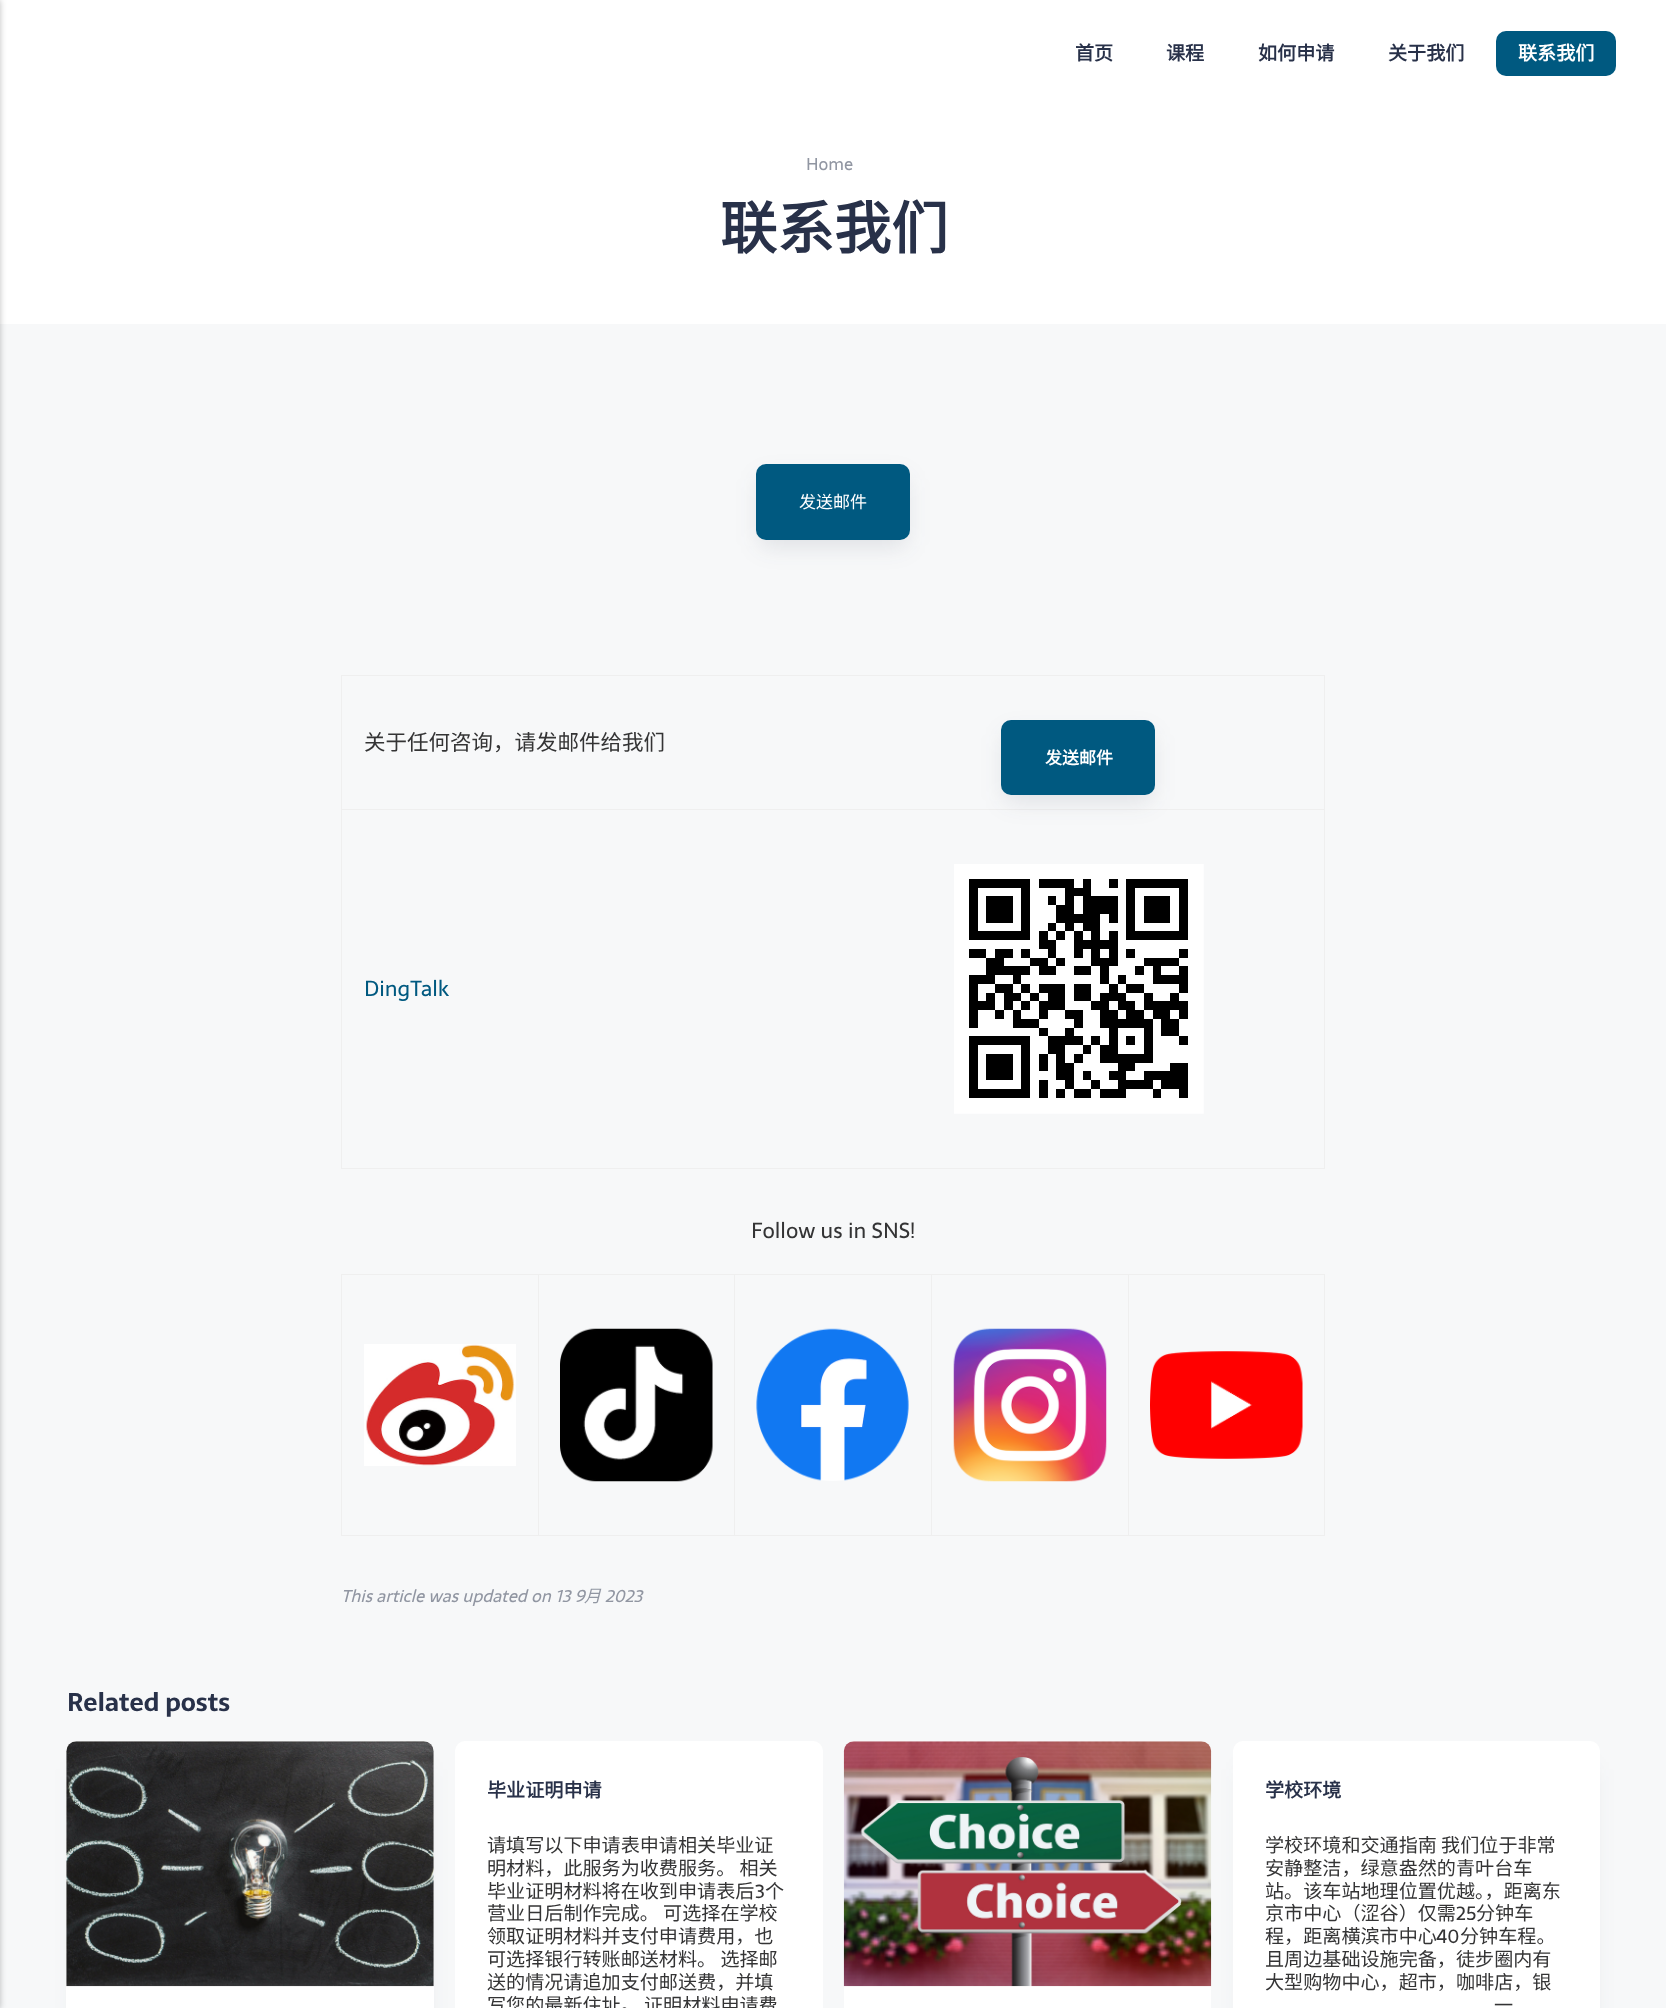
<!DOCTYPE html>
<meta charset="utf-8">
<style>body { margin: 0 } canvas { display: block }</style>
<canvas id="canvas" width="1666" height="2008"></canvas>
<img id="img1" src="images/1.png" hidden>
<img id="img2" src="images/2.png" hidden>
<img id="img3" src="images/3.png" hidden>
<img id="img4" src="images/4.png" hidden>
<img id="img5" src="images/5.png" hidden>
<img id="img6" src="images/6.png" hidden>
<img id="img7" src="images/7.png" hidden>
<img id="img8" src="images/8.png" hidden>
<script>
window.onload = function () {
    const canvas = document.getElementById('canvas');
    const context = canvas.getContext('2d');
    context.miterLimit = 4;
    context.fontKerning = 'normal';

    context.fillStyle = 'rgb(255, 255, 255)';
    context.fillRect(0, 0, 1666, 2008);
    context.fillStyle = 'rgb(247, 248, 249)';
    context.fillRect(0, 324, 1666, 1684);
    context.fillStyle = 'rgba(0, 0, 0, 0.25)';
    context.filter = 'blur(3px)';
    context.beginPath();
    context.rect(-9, 0, 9, 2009);
    context.fill();
    context.filter = 'none';
    context.fillStyle = 'rgb(0, 89, 128)';
    context.beginPath();
    context.roundRect(1496, 31, 120, 45, 10);
    context.fill();
    context.fillStyle = 'rgba(40, 49, 73, 0.12)';
    context.filter = 'blur(12.5px)';
    context.beginPath();
    context.roundRect(760, 478, 146, 68, 6);
    context.fill();
    context.filter = 'none';
    context.fillStyle = 'rgb(0, 89, 128)';
    context.beginPath();
    context.roundRect(756, 464, 154, 76, 10);
    context.fill();
    context.fillStyle = 'rgb(239, 239, 239)';
    context.fillRect(341, 675, 984, 1);
    context.fillRect(1324, 675, 1, 494);
    context.fillRect(341, 1168, 984, 1);
    context.fillRect(341, 675, 1, 494);
    context.fillRect(341, 809, 984, 1);
    context.fillStyle = 'rgba(40, 49, 73, 0.12)';
    context.filter = 'blur(12.5px)';
    context.beginPath();
    context.roundRect(1005, 734, 146, 67, 6);
    context.fill();
    context.filter = 'none';
    context.fillStyle = 'rgb(0, 89, 128)';
    context.beginPath();
    context.roundRect(1001, 720, 154, 75, 10);
    context.fill();
    context.drawImage(document.getElementById('img1'), 954, 864, 250, 250);
    context.fillStyle = 'rgb(239, 239, 239)';
    context.fillRect(341, 1274, 984, 1);
    context.fillRect(1324, 1274, 1, 262);
    context.fillRect(341, 1535, 984, 1);
    context.fillRect(341, 1274, 1, 262);
    context.drawImage(document.getElementById('img2'), 364, 1344, 152, 122);
    context.fillRect(538, 1274, 1, 262);
    context.drawImage(document.getElementById('img3'), 560, 1328, 153, 154);
    context.fillRect(734, 1274, 1, 262);
    context.drawImage(document.getElementById('img4'), 756, 1328, 153, 153);
    context.fillRect(931, 1274, 1, 262);
    context.drawImage(document.getElementById('img5'), 953, 1328, 154, 154);
    context.fillRect(1128, 1274, 1, 262);
    context.drawImage(document.getElementById('img6'), 1150, 1351, 153, 108);
    context.fillStyle = 'rgba(40, 49, 73, 0.08)';
    context.filter = 'blur(11px)';
    context.beginPath();
    context.roundRect(75, 1769, 353, 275, 2.5);
    context.fill();
    context.filter = 'none';
    context.fillStyle = 'rgb(255, 255, 255)';
    context.beginPath();
    context.roundRect(66, 1741, 368, 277, 10);
    context.fill();
    context.drawImage(document.getElementById('img7'), 66, 1741, 368, 246);
    context.beginPath();
    context.roundRect(455, 1741, 368, 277, 10);
    context.fill();
    context.beginPath();
    context.roundRect(844, 1741, 367, 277, 10);
    context.fill();
    context.drawImage(document.getElementById('img8'), 843, 1741, 369, 246);
    context.fillStyle = 'rgba(40, 49, 73, 0.08)';
    context.filter = 'blur(11px)';
    context.beginPath();
    context.roundRect(1241, 1769, 353, 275, 2.5);
    context.fill();
    context.filter = 'none';
    context.fillStyle = 'rgb(255, 255, 255)';
    context.beginPath();
    context.roundRect(1233, 1741, 367, 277, 10);
    context.fill();
    context.font = 'bold 19.1px Noto Sans CJK SC';
    context.fillStyle = 'rgb(40, 49, 73)';
    context.fillText('首页', 1075, 60);
    context.fillText('课程', 1166, 60);
    context.fillText('如何申请', 1258, 60);
    context.fillText('关于我们', 1388, 60);
    context.fillStyle = 'rgb(255, 255, 255)';
    context.fillText('联系我们', 1518, 60);
    context.font = '17px Sarala';
    context.fillStyle = 'rgb(145, 150, 162)';
    context.fillText('Home', 806, 170);
    context.font = 'bold 57px Noto Sans CJK SC';
    context.fillStyle = 'rgb(40, 49, 73)';
    context.fillText('联系我们', 720, 249);
    context.font = '17px Noto Sans CJK SC';
    context.fillStyle = 'rgb(255, 255, 255)';
    context.fillText('发送邮件', 799, 508);
    context.font = '21.5px Noto Sans CJK SC';
    context.fillStyle = 'rgb(52, 52, 53)';
    context.fillText('关于任何咨询，请发邮件给我们', 364, 750);
    context.font = 'bold 17px Noto Sans CJK SC';
    context.fillStyle = 'rgb(255, 255, 255)';
    context.fillText('发送邮件', 1045, 764);
    context.font = '21.5px Sarala';
    context.fillStyle = 'rgb(0, 89, 128)';
    context.fillText('DingTalk', 364, 996);
    context.fillStyle = 'rgb(52, 52, 53)';
    context.fillText('Follow us in SNS!', 751, 1238);
    context.font = 'italic 17px Sarala';
    context.fillStyle = 'rgb(145, 150, 162)';
    context.fillText('This article was updated on 13 9', 341, 1602);
    context.font = 'italic 17px Noto Sans CJK SC';
    context.fillText('月', 584, 1602);
    context.font = 'italic 17px Sarala';
    context.fillText('2023', 605, 1602);
    context.font = 'bold 25.25px Sarala';
    context.fillStyle = 'rgb(40, 49, 73)';
    context.fillText('Related posts', 67, 1711);
    context.font = 'bold 19.1px Noto Sans CJK SC';
    context.fillText('毕业证明申请', 487, 1797);
    context.font = '19.1px Noto Sans CJK SC';
    context.fillStyle = 'rgb(52, 52, 53)';
    context.fillText('请填写以下申请表申请相关毕业证', 487, 1852);
    context.fillText('明材料，此服务为收费服务。 相关', 487, 1875);
    context.fillText('毕业证明材料将在收到申请表后', 487, 1898);
    context.font = '19.1px Sarala';
    context.fillText('3', 755, 1898);
    context.font = '19.1px Noto Sans CJK SC';
    context.fillText('个', 765, 1898);
    context.fillText('营业日后制作完成。 可选择在学校', 487, 1920);
    context.fillText('领取证明材料并支付申请费用，也', 487, 1943);
    context.fillText('可选择银行转账邮送材料。 选择邮', 487, 1966);
    context.fillText('送的情况请追加支付邮送费，并填', 487, 1989);
    context.fillText('写您的最新住址。 证明材料申请费', 487, 2012);
    context.font = 'bold 19.1px Noto Sans CJK SC';
    context.fillStyle = 'rgb(40, 49, 73)';
    context.fillText('学校环境', 1265, 1797);
    context.font = '19.1px Noto Sans CJK SC';
    context.fillStyle = 'rgb(52, 52, 53)';
    context.fillText('学校环境和交通指南 我们位于非常', 1265, 1852);
    context.fillText('安静整洁，绿意盎然的青叶台车', 1265, 1875);
    context.fillText('站。该车站地理位置优越。，距离东', 1265, 1898);
    context.fillText('京市中心（涩谷）仅需', 1265, 1920);
    context.font = '19.1px Sarala';
    context.fillText('25', 1456, 1920);
    context.font = '19.1px Noto Sans CJK SC';
    context.fillText('分钟车', 1476, 1920);
    context.fillText('程，距离横滨市中心', 1265, 1943);
    context.font = '19.1px Sarala';
    context.fillText('40', 1436, 1943);
    context.font = '19.1px Noto Sans CJK SC';
    context.fillText('分钟车程。', 1460, 1943);
    context.fillText('且周边基础设施完备，徒步圈内有', 1265, 1966);
    context.fillText('大型购物中心，超市，咖啡店，银', 1265, 1989);
    context.fillText('一', 1494, 2012);
};
</script>
